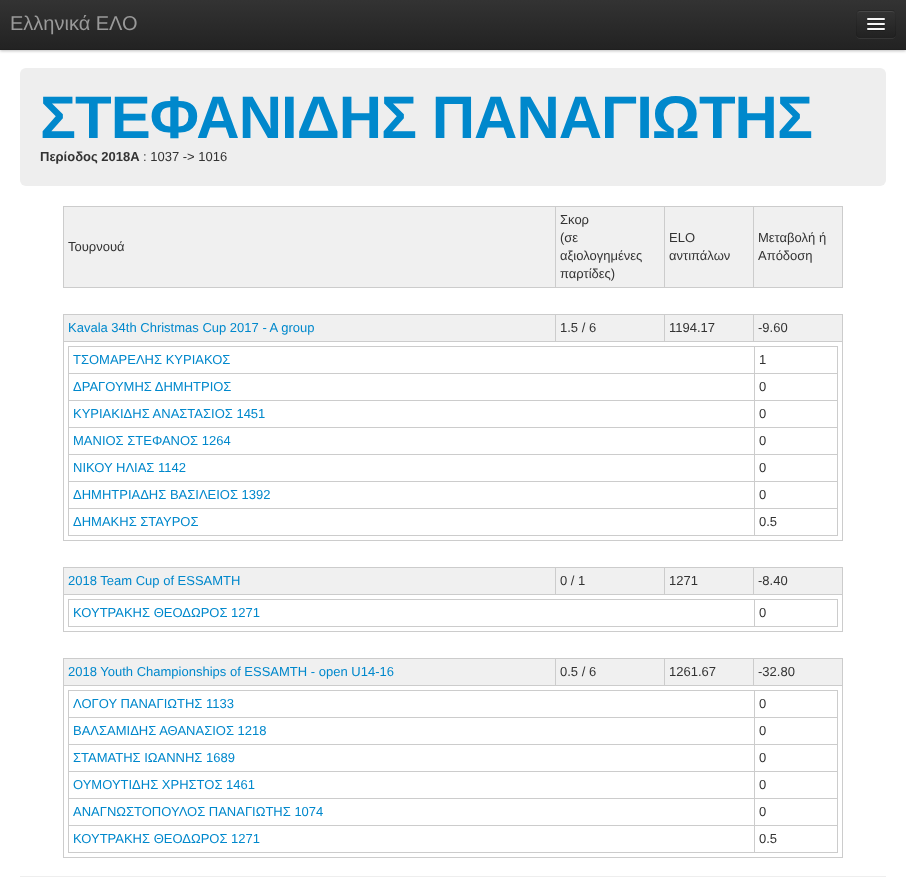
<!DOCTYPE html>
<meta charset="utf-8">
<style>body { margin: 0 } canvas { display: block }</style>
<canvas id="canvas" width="906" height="885"></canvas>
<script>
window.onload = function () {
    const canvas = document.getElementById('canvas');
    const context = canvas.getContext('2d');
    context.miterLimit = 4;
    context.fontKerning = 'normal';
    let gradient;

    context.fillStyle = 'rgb(255, 255, 255)';
    context.fillRect(0, 0, 906, 885);
    context.fillStyle = 'rgba(0, 0, 0, 0.25)';
    context.filter = 'blur(1.5px)';
    context.beginPath();
    context.rect(0, 1, 906, 50);
    context.fill();
    context.filter = 'none';
    gradient = context.createLinearGradient(453, 0, 453, 50);
    gradient.addColorStop(0, 'rgb(51, 51, 51)');
    gradient.addColorStop(1, 'rgb(34, 34, 34)');
    context.fillStyle = gradient;
    context.fillRect(0, 0, 906, 49);
    context.fillStyle = 'rgb(31, 31, 31)';
    context.fillRect(0, 49, 906, 1);
    context.fillStyle = 'rgb(54, 54, 54)';
    context.beginPath();
    context.moveTo(856, 34);
    context.bezierCurveTo(856, 40, 861, 39, 865, 39);
    context.lineTo(887, 39);
    context.bezierCurveTo(891, 39, 896, 40, 896, 34);
    context.bezierCurveTo(896, 36, 894, 38, 892, 38);
    context.lineTo(860, 38);
    context.bezierCurveTo(858, 38, 856, 36, 856, 34);
    context.closePath();
    context.fill();
    context.fillStyle = 'rgb(44, 44, 44)';
    context.beginPath();
    context.roundRect(856, 10, 40, 28, 4);
    context.fill();
    context.save();
    context.beginPath();
    context.roundRect(856, 10, 40, 28, 4);
    context.clip();
    gradient = context.createLinearGradient(876, 11, 876, 37);
    gradient.addColorStop(0, 'rgb(51, 51, 51)');
    gradient.addColorStop(1, 'rgb(34, 34, 34)');
    context.fillStyle = gradient;
    context.fillRect(856, 11, 40, 26);
    context.restore();
    context.fillStyle = 'rgb(71, 71, 71)';
    context.beginPath();
    context.moveTo(860, 12);
    context.lineTo(892, 12);
    context.bezierCurveTo(894, 12, 895, 13, 895, 15);
    context.bezierCurveTo(895, 10, 891, 11, 886.5, 11);
    context.lineTo(865.5, 11);
    context.bezierCurveTo(861, 11, 857, 10, 857, 15);
    context.bezierCurveTo(857, 13, 858, 12, 860, 12);
    context.closePath();
    context.fill();
    context.beginPath();
    context.moveTo(894.5, 36.5);
    context.bezierCurveTo(894, 37, 893, 37.5, 892, 37.5);
    context.lineTo(860, 37.5);
    context.bezierCurveTo(859, 37.5, 858, 37, 857.5, 36.5);
    context.strokeStyle = 'rgb(33, 33, 33)';
    context.stroke();
    context.beginPath();
    context.moveTo(857.5, 36.5);
    context.bezierCurveTo(857, 36, 856.5, 35, 856.5, 34);
    context.lineTo(856.5, 14);
    context.bezierCurveTo(856.5, 13, 857, 12, 857.5, 11.5);
    context.bezierCurveTo(858, 11, 859, 10.5, 860, 10.5);
    context.lineTo(892, 10.5);
    context.bezierCurveTo(893, 10.5, 894, 11, 894.5, 11.5);
    context.bezierCurveTo(895, 12, 895.5, 13, 895.5, 14);
    context.lineTo(895.5, 34);
    context.bezierCurveTo(895.5, 35, 895, 36, 894.5, 36.5);
    context.strokeStyle = 'rgba(0, 0, 0, 0.1)';
    context.stroke();
    context.fillStyle = 'rgb(34, 34, 34)';
    context.beginPath();
    context.moveTo(867, 19.5);
    context.bezierCurveTo(866, 21.5, 870.5, 21, 870.5, 21);
    context.lineTo(881.5, 21);
    context.bezierCurveTo(881.5, 21, 886, 21.5, 885, 19.5);
    context.bezierCurveTo(884, 20.5, 877.5, 20, 876, 20);
    context.bezierCurveTo(874.5, 20, 868, 20.5, 867, 19.5);
    context.closePath();
    context.fill();
    context.fillStyle = 'rgb(245, 245, 245)';
    context.beginPath();
    context.roundRect(867, 18, 18, 2, 1);
    context.fill();
    context.fillStyle = 'rgb(32, 32, 32)';
    context.beginPath();
    context.moveTo(867, 24.5);
    context.bezierCurveTo(866, 26.5, 870.5, 26, 870.5, 26);
    context.lineTo(881.5, 26);
    context.bezierCurveTo(881.5, 26, 886, 26.5, 885, 24.5);
    context.bezierCurveTo(884, 25.5, 877.5, 25, 876, 25);
    context.bezierCurveTo(874.5, 25, 868, 25.5, 867, 24.5);
    context.closePath();
    context.fill();
    context.fillStyle = 'rgb(245, 245, 245)';
    context.beginPath();
    context.roundRect(867, 23, 18, 2, 1);
    context.fill();
    context.fillStyle = 'rgb(29, 29, 29)';
    context.beginPath();
    context.moveTo(867, 29.5);
    context.bezierCurveTo(866, 31.5, 870.5, 31, 870.5, 31);
    context.lineTo(881.5, 31);
    context.bezierCurveTo(881.5, 31, 886, 31.5, 885, 29.5);
    context.bezierCurveTo(884, 30.5, 877.5, 30, 876, 30);
    context.bezierCurveTo(874.5, 30, 868, 30.5, 867, 29.5);
    context.closePath();
    context.fill();
    context.fillStyle = 'rgb(245, 245, 245)';
    context.beginPath();
    context.roundRect(867, 28, 18, 2, 1);
    context.fill();
    context.fillStyle = 'rgb(238, 238, 238)';
    context.beginPath();
    context.roundRect(20, 68, 866, 118, 6);
    context.fill();
    context.fillStyle = 'rgb(240, 240, 240)';
    context.fillRect(64, 207, 778, 80);
    context.fillStyle = 'rgb(204, 204, 204)';
    context.fillRect(753, 206, 90, 1);
    context.fillRect(842, 206, 1, 82);
    context.fillRect(753, 287, 90, 1);
    context.fillRect(753, 206, 1, 82);
    context.fillRect(664, 206, 90, 1);
    context.fillRect(664, 287, 90, 1);
    context.fillRect(664, 206, 1, 82);
    context.fillRect(555, 206, 110, 1);
    context.fillRect(555, 287, 110, 1);
    context.fillRect(555, 206, 1, 82);
    context.fillRect(63, 206, 493, 1);
    context.fillRect(63, 287, 493, 1);
    context.fillRect(63, 206, 1, 82);
    context.fillStyle = 'rgb(240, 240, 240)';
    context.fillRect(64, 315, 778, 26);
    context.fillStyle = 'rgb(204, 204, 204)';
    context.fillRect(753, 314, 90, 1);
    context.fillRect(63, 341, 780, 1);
    context.fillRect(753, 314, 1, 28);
    context.fillRect(664, 314, 90, 1);
    context.fillRect(664, 314, 1, 28);
    context.fillRect(555, 314, 110, 1);
    context.fillRect(555, 314, 1, 28);
    context.fillRect(63, 314, 493, 1);
    context.fillRect(842, 341, 1, 200);
    context.fillRect(63, 540, 780, 1);
    context.fillRect(63, 341, 1, 200);
    context.fillRect(63, 314, 1, 28);
    context.fillRect(842, 314, 1, 28);
    context.fillRect(754, 346, 84, 1);
    context.fillRect(754, 373, 84, 1);
    context.fillRect(754, 400, 84, 1);
    context.fillRect(754, 427, 84, 1);
    context.fillRect(754, 454, 84, 1);
    context.fillRect(754, 481, 84, 1);
    context.fillRect(754, 508, 84, 1);
    context.fillRect(837, 508, 1, 28);
    context.fillRect(754, 535, 84, 1);
    context.fillRect(754, 508, 1, 28);
    context.fillRect(68, 508, 687, 1);
    context.fillRect(754, 481, 1, 28);
    context.fillRect(68, 481, 687, 1);
    context.fillRect(754, 454, 1, 28);
    context.fillRect(68, 454, 687, 1);
    context.fillRect(754, 427, 1, 28);
    context.fillRect(68, 427, 687, 1);
    context.fillRect(754, 400, 1, 28);
    context.fillRect(68, 400, 687, 1);
    context.fillRect(754, 373, 1, 28);
    context.fillRect(68, 373, 687, 1);
    context.fillRect(754, 346, 1, 28);
    context.fillRect(68, 346, 687, 1);
    context.fillRect(68, 535, 687, 1);
    context.fillRect(68, 508, 1, 28);
    context.fillRect(68, 481, 1, 28);
    context.fillRect(68, 454, 1, 28);
    context.fillRect(68, 427, 1, 28);
    context.fillRect(68, 400, 1, 28);
    context.fillRect(68, 373, 1, 28);
    context.fillRect(68, 346, 1, 28);
    context.fillRect(837, 481, 1, 28);
    context.fillRect(837, 454, 1, 28);
    context.fillRect(837, 427, 1, 28);
    context.fillRect(837, 400, 1, 28);
    context.fillRect(837, 373, 1, 28);
    context.fillRect(837, 346, 1, 28);
    context.fillStyle = 'rgb(240, 240, 240)';
    context.fillRect(64, 568, 778, 26);
    context.fillStyle = 'rgb(204, 204, 204)';
    context.fillRect(753, 567, 90, 1);
    context.fillRect(63, 594, 780, 1);
    context.fillRect(753, 567, 1, 28);
    context.fillRect(664, 567, 90, 1);
    context.fillRect(664, 567, 1, 28);
    context.fillRect(555, 567, 110, 1);
    context.fillRect(555, 567, 1, 28);
    context.fillRect(63, 567, 493, 1);
    context.fillRect(842, 594, 1, 38);
    context.fillRect(63, 631, 780, 1);
    context.fillRect(63, 594, 1, 38);
    context.fillRect(63, 567, 1, 28);
    context.fillRect(842, 567, 1, 28);
    context.fillRect(754, 599, 84, 1);
    context.fillRect(837, 599, 1, 28);
    context.fillRect(754, 626, 84, 1);
    context.fillRect(754, 599, 1, 28);
    context.fillRect(68, 599, 687, 1);
    context.fillRect(68, 626, 687, 1);
    context.fillRect(68, 599, 1, 28);
    context.fillStyle = 'rgb(240, 240, 240)';
    context.fillRect(64, 659, 778, 26);
    context.fillStyle = 'rgb(204, 204, 204)';
    context.fillRect(753, 658, 90, 1);
    context.fillRect(63, 685, 780, 1);
    context.fillRect(753, 658, 1, 28);
    context.fillRect(664, 658, 90, 1);
    context.fillRect(664, 658, 1, 28);
    context.fillRect(555, 658, 110, 1);
    context.fillRect(555, 658, 1, 28);
    context.fillRect(63, 658, 493, 1);
    context.fillRect(842, 685, 1, 173);
    context.fillRect(63, 857, 780, 1);
    context.fillRect(63, 685, 1, 173);
    context.fillRect(63, 658, 1, 28);
    context.fillRect(842, 658, 1, 28);
    context.fillRect(754, 690, 84, 1);
    context.fillRect(754, 717, 84, 1);
    context.fillRect(754, 744, 84, 1);
    context.fillRect(754, 771, 84, 1);
    context.fillRect(754, 798, 84, 1);
    context.fillRect(754, 825, 84, 1);
    context.fillRect(837, 825, 1, 28);
    context.fillRect(754, 852, 84, 1);
    context.fillRect(754, 825, 1, 28);
    context.fillRect(68, 825, 687, 1);
    context.fillRect(754, 798, 1, 28);
    context.fillRect(68, 798, 687, 1);
    context.fillRect(754, 771, 1, 28);
    context.fillRect(68, 771, 687, 1);
    context.fillRect(754, 744, 1, 28);
    context.fillRect(68, 744, 687, 1);
    context.fillRect(754, 717, 1, 28);
    context.fillRect(68, 717, 687, 1);
    context.fillRect(754, 690, 1, 28);
    context.fillRect(68, 690, 687, 1);
    context.fillRect(68, 852, 687, 1);
    context.fillRect(68, 825, 1, 28);
    context.fillRect(68, 798, 1, 28);
    context.fillRect(68, 771, 1, 28);
    context.fillRect(68, 744, 1, 28);
    context.fillRect(68, 717, 1, 28);
    context.fillRect(68, 690, 1, 28);
    context.fillRect(837, 798, 1, 28);
    context.fillRect(837, 771, 1, 28);
    context.fillRect(837, 744, 1, 28);
    context.fillRect(837, 717, 1, 28);
    context.fillRect(837, 690, 1, 28);
    context.fillStyle = 'rgb(238, 238, 238)';
    context.fillRect(20, 876, 866, 1);
    context.font = '20px Liberation Sans';
    context.fillStyle = 'rgb(153, 153, 153)';
    context.fillText('Ελληνικά ΕΛΟ', 10, 30);
    context.letterSpacing = '-1px';
    context.font = 'bold 60px Liberation Sans';
    context.fillStyle = 'rgb(0, 136, 204)';
    context.fillText('ΣΤΕΦΑΝΙΔΗΣ ΠΑΝΑΓΙΩΤΗΣ', 40, 138);
    context.letterSpacing = '0px';
    context.font = 'bold 13px Liberation Sans';
    context.fillStyle = 'rgb(51, 51, 51)';
    context.fillText('Περίοδος 2018A', 40, 161);
    context.font = '13px Liberation Sans';
    context.fillText(': 1037 -> 1016', 143, 161);
    context.fillText('Τουρνουά', 68, 251);
    context.fillText('Σκορ', 560, 224);
    context.fillText('(σε', 560, 242);
    context.fillText('αξιολογημένες', 560, 260);
    context.fillText('παρτίδες)', 560, 278);
    context.fillText('ELO', 669, 242);
    context.fillText('αντιπάλων', 669, 260);
    context.fillText('Μεταβολή ή', 758, 242);
    context.fillText('Απόδοση', 758, 260);
    context.fillStyle = 'rgb(0, 136, 204)';
    context.fillText('Kavala 34th Christmas Cup 2017 - A group', 68, 332);
    context.fillStyle = 'rgb(51, 51, 51)';
    context.fillText('1.5 / 6', 560, 332);
    context.fillText('1194.17', 669, 332);
    context.fillText('-9.60', 758, 332);
    context.fillStyle = 'rgb(0, 136, 204)';
    context.fillText('ΤΣΟΜΑΡΕΛΗΣ ΚΥΡΙΑΚΟΣ', 73, 364);
    context.fillStyle = 'rgb(51, 51, 51)';
    context.fillText('1', 759, 364);
    context.fillStyle = 'rgb(0, 136, 204)';
    context.fillText('ΔΡΑΓΟΥΜΗΣ ΔΗΜΗΤΡΙΟΣ', 73, 391);
    context.fillStyle = 'rgb(51, 51, 51)';
    context.fillText('0', 759, 391);
    context.fillStyle = 'rgb(0, 136, 204)';
    context.fillText('ΚΥΡΙΑΚΙΔΗΣ ΑΝΑΣΤΑΣΙΟΣ 1451', 73, 418);
    context.fillStyle = 'rgb(51, 51, 51)';
    context.fillText('0', 759, 418);
    context.fillStyle = 'rgb(0, 136, 204)';
    context.fillText('ΜΑΝΙΟΣ ΣΤΕΦΑΝΟΣ 1264', 73, 445);
    context.fillStyle = 'rgb(51, 51, 51)';
    context.fillText('0', 759, 445);
    context.fillStyle = 'rgb(0, 136, 204)';
    context.fillText('ΝΙΚΟΥ ΗΛΙΑΣ 1142', 73, 472);
    context.fillStyle = 'rgb(51, 51, 51)';
    context.fillText('0', 759, 472);
    context.fillStyle = 'rgb(0, 136, 204)';
    context.fillText('ΔΗΜΗΤΡΙΑΔΗΣ ΒΑΣΙΛΕΙΟΣ 1392', 73, 499);
    context.fillStyle = 'rgb(51, 51, 51)';
    context.fillText('0', 759, 499);
    context.fillStyle = 'rgb(0, 136, 204)';
    context.fillText('ΔΗΜΑΚΗΣ ΣΤΑΥΡΟΣ', 73, 526);
    context.fillStyle = 'rgb(51, 51, 51)';
    context.fillText('0.5', 759, 526);
    context.fillStyle = 'rgb(0, 136, 204)';
    context.fillText('2018 Team Cup of ESSAMTH', 68, 585);
    context.fillStyle = 'rgb(51, 51, 51)';
    context.fillText('0 / 1', 560, 585);
    context.fillText('1271', 669, 585);
    context.fillText('-8.40', 758, 585);
    context.fillStyle = 'rgb(0, 136, 204)';
    context.fillText('ΚΟΥΤΡΑΚΗΣ ΘΕΟΔΩΡΟΣ 1271', 73, 617);
    context.fillStyle = 'rgb(51, 51, 51)';
    context.fillText('0', 759, 617);
    context.fillStyle = 'rgb(0, 136, 204)';
    context.fillText('2018 Youth Championships of ESSAMTH - open U14-16', 68, 676);
    context.fillStyle = 'rgb(51, 51, 51)';
    context.fillText('0.5 / 6', 560, 676);
    context.fillText('1261.67', 669, 676);
    context.fillText('-32.80', 758, 676);
    context.fillStyle = 'rgb(0, 136, 204)';
    context.fillText('ΛΟΓΟΥ ΠΑΝΑΓΙΩΤΗΣ 1133', 73, 708);
    context.fillStyle = 'rgb(51, 51, 51)';
    context.fillText('0', 759, 708);
    context.fillStyle = 'rgb(0, 136, 204)';
    context.fillText('ΒΑΛΣΑΜΙΔΗΣ ΑΘΑΝΑΣΙΟΣ 1218', 73, 735);
    context.fillStyle = 'rgb(51, 51, 51)';
    context.fillText('0', 759, 735);
    context.fillStyle = 'rgb(0, 136, 204)';
    context.fillText('ΣΤΑΜΑΤΗΣ ΙΩΑΝΝΗΣ 1689', 73, 762);
    context.fillStyle = 'rgb(51, 51, 51)';
    context.fillText('0', 759, 762);
    context.fillStyle = 'rgb(0, 136, 204)';
    context.fillText('ΟΥΜΟΥΤΙΔΗΣ ΧΡΗΣΤΟΣ 1461', 73, 789);
    context.fillStyle = 'rgb(51, 51, 51)';
    context.fillText('0', 759, 789);
    context.fillStyle = 'rgb(0, 136, 204)';
    context.fillText('ΑΝΑΓΝΩΣΤΟΠΟΥΛΟΣ ΠΑΝΑΓΙΩΤΗΣ 1074', 73, 816);
    context.fillStyle = 'rgb(51, 51, 51)';
    context.fillText('0', 759, 816);
    context.fillStyle = 'rgb(0, 136, 204)';
    context.fillText('ΚΟΥΤΡΑΚΗΣ ΘΕΟΔΩΡΟΣ 1271', 73, 843);
    context.fillStyle = 'rgb(51, 51, 51)';
    context.fillText('0.5', 759, 843);
};
</script>
